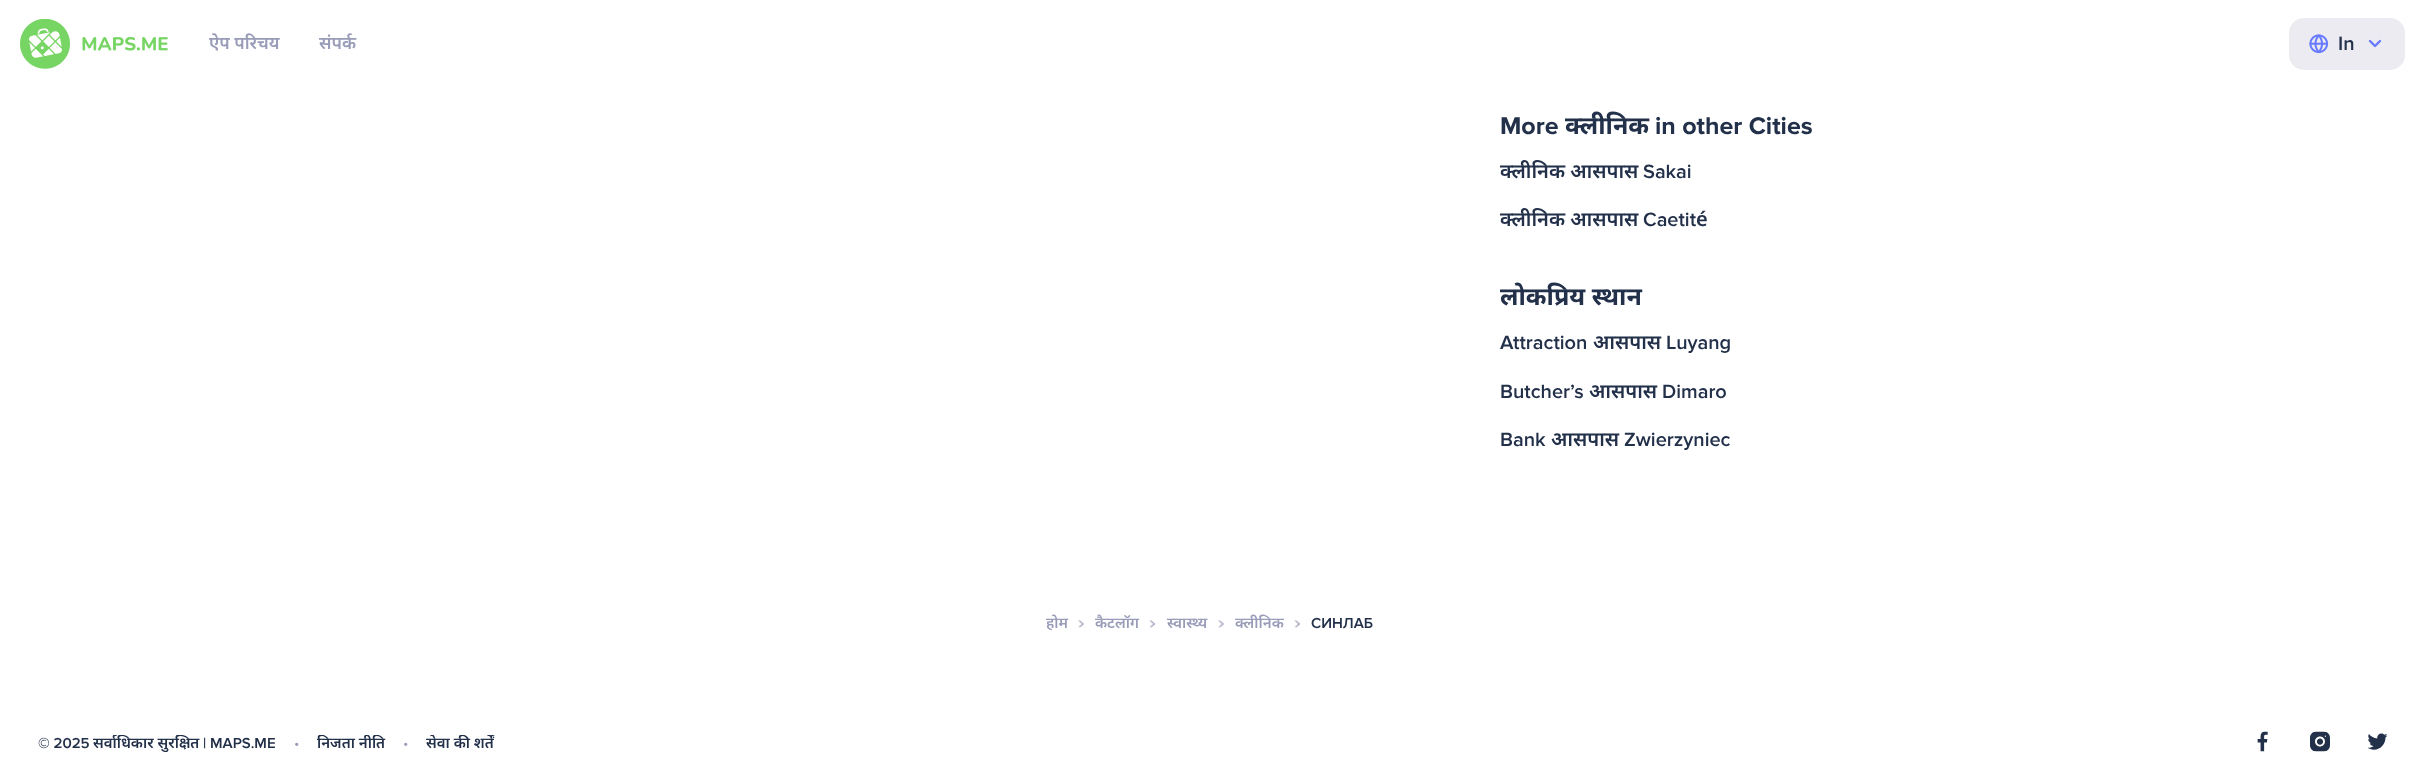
<!DOCTYPE html>
<meta charset="utf-8">
<style>body { margin: 0 } canvas { display: block }</style>
<canvas id="canvas" width="2424" height="780"></canvas>
<img id="img1" src="images/1.png" hidden>
<img id="img2" src="images/2.png" hidden>
<img id="img3" src="images/3.png" hidden>
<img id="img4" src="images/4.png" hidden>
<img id="img5" src="images/5.png" hidden>
<img id="img6" src="images/6.png" hidden>
<img id="img7" src="images/7.png" hidden>
<script>
window.onload = function () {
    const canvas = document.getElementById('canvas');
    const context = canvas.getContext('2d');
    context.miterLimit = 4;
    context.fontKerning = 'normal';

    context.fillStyle = 'rgb(255, 255, 255)';
    context.fillRect(0, 0, 2424, 780);
    context.drawImage(document.getElementById('img1'), 20, 19, 148, 50);
    context.fillStyle = 'rgb(235, 235, 241)';
    context.beginPath();
    context.roundRect(2289, 18, 116, 52, 15);
    context.fill();
    context.drawImage(document.getElementById('img2'), 2309, 34, 20, 20);
    context.beginPath();
    context.moveTo(2370, 41);
    context.lineTo(2375, 46);
    context.lineTo(2380, 41);
    context.strokeStyle = 'rgb(104, 122, 255)';
    context.lineWidth = 2.4;
    context.lineCap = 'round';
    context.lineJoin = 'round';
    context.stroke();
    context.drawImage(document.getElementById('img3'), 1078, 620, 7, 8);
    context.drawImage(document.getElementById('img4'), 1149, 620, 7, 8);
    context.drawImage(document.getElementById('img3'), 1218, 620, 7, 8);
    context.drawImage(document.getElementById('img4'), 1294, 620, 7, 8);
    context.drawImage(document.getElementById('img5'), 2257, 731, 11, 21);
    context.drawImage(document.getElementById('img6'), 2310, 731, 20, 21);
    context.drawImage(document.getElementById('img7'), 2367, 733, 21, 17);
    context.font = '600 17.5px Noto Sans';
    context.fillStyle = 'rgb(153, 156, 184)';
    context.fillText('ऐप परिचय', 209, 49);
    context.fillText('संपर्क', 319, 49);
    context.font = '600 20px Proxima Nova';
    context.fillStyle = 'rgb(34, 48, 74)';
    context.fillText('In', 2338, 50);
    context.font = 'bold 25px Proxima Nova';
    context.fillText('More', 1500, 134);
    context.font = 'bold 25px Noto Sans';
    context.fillText('क्लीनिक', 1565, 134);
    context.font = 'bold 25px Proxima Nova';
    context.fillText('in other Cities', 1655, 134);
    context.font = '600 20px Noto Sans';
    context.fillText('क्लीनिक आसपास', 1500, 178);
    context.font = '600 20px Proxima Nova';
    context.fillText('Sakai', 1643, 178);
    context.font = '600 20px Noto Sans';
    context.fillText('क्लीनिक आसपास', 1500, 226);
    context.font = '600 20px Proxima Nova';
    context.fillText('Caetit', 1643, 226);
    context.font = '600 20px Noto Sans';
    context.fillText('é', 1696, 226);
    context.font = 'bold 25px Noto Sans';
    context.fillText('लोकप्रिय स्थान', 1500, 305);
    context.font = '600 20px Proxima Nova';
    context.fillText('Attraction', 1500, 349);
    context.font = '600 20px Noto Sans';
    context.fillText('आसपास', 1593, 349);
    context.font = '600 20px Proxima Nova';
    context.fillText('Luyang', 1666, 349);
    context.fillText('Butcher’s', 1500, 398);
    context.font = '600 20px Noto Sans';
    context.fillText('आसपास', 1589, 398);
    context.font = '600 20px Proxima Nova';
    context.fillText('Dimaro', 1662, 398);
    context.fillText('Bank', 1500, 446);
    context.font = '600 20px Noto Sans';
    context.fillText('आसपास', 1551, 446);
    context.font = '600 20px Proxima Nova';
    context.fillText('Zwierzyniec', 1624, 446);
    context.font = '600 15px Noto Sans';
    context.fillStyle = 'rgb(153, 156, 184)';
    context.fillText('होम', 1046, 628);
    context.fillText('कैटलॉग', 1095, 628);
    context.fillText('स्वास्थ्य', 1167, 628);
    context.fillText('क्लीनिक', 1235, 628);
    context.font = '600 15px Proxima Nova';
    context.fillStyle = 'rgb(34, 48, 74)';
    context.fillText('СИНЛАБ', 1311, 628);
    context.fillText('© 2025', 38, 748);
    context.save();
    context.beginPath();
    context.rect(38, 735, 497, 35);
    context.clip();
    context.font = '600 15px Noto Sans';
    context.fillText('सर्वाधिकार सुरक्षित', 93, 748);
    context.restore();
    context.fillText('| MAPS.ME', 203, 748);
    context.font = '15px Proxima Nova';
    context.fillStyle = 'rgb(153, 156, 184)';
    context.fillText('•', 294, 748);
    context.save();
    context.beginPath();
    context.rect(38, 735, 497, 35);
    context.clip();
    context.font = '600 15px Noto Sans';
    context.fillStyle = 'rgb(34, 48, 74)';
    context.fillText('निजता नीति', 317, 748);
    context.restore();
    context.fillText('•', 403, 748);
    context.save();
    context.beginPath();
    context.rect(38, 735, 497, 35);
    context.clip();
    context.font = '600 15px Noto Sans';
    context.fillStyle = 'rgb(34, 48, 74)';
    context.fillText('सेवा की शर्तें', 426, 748);
    context.restore();
};
</script>
